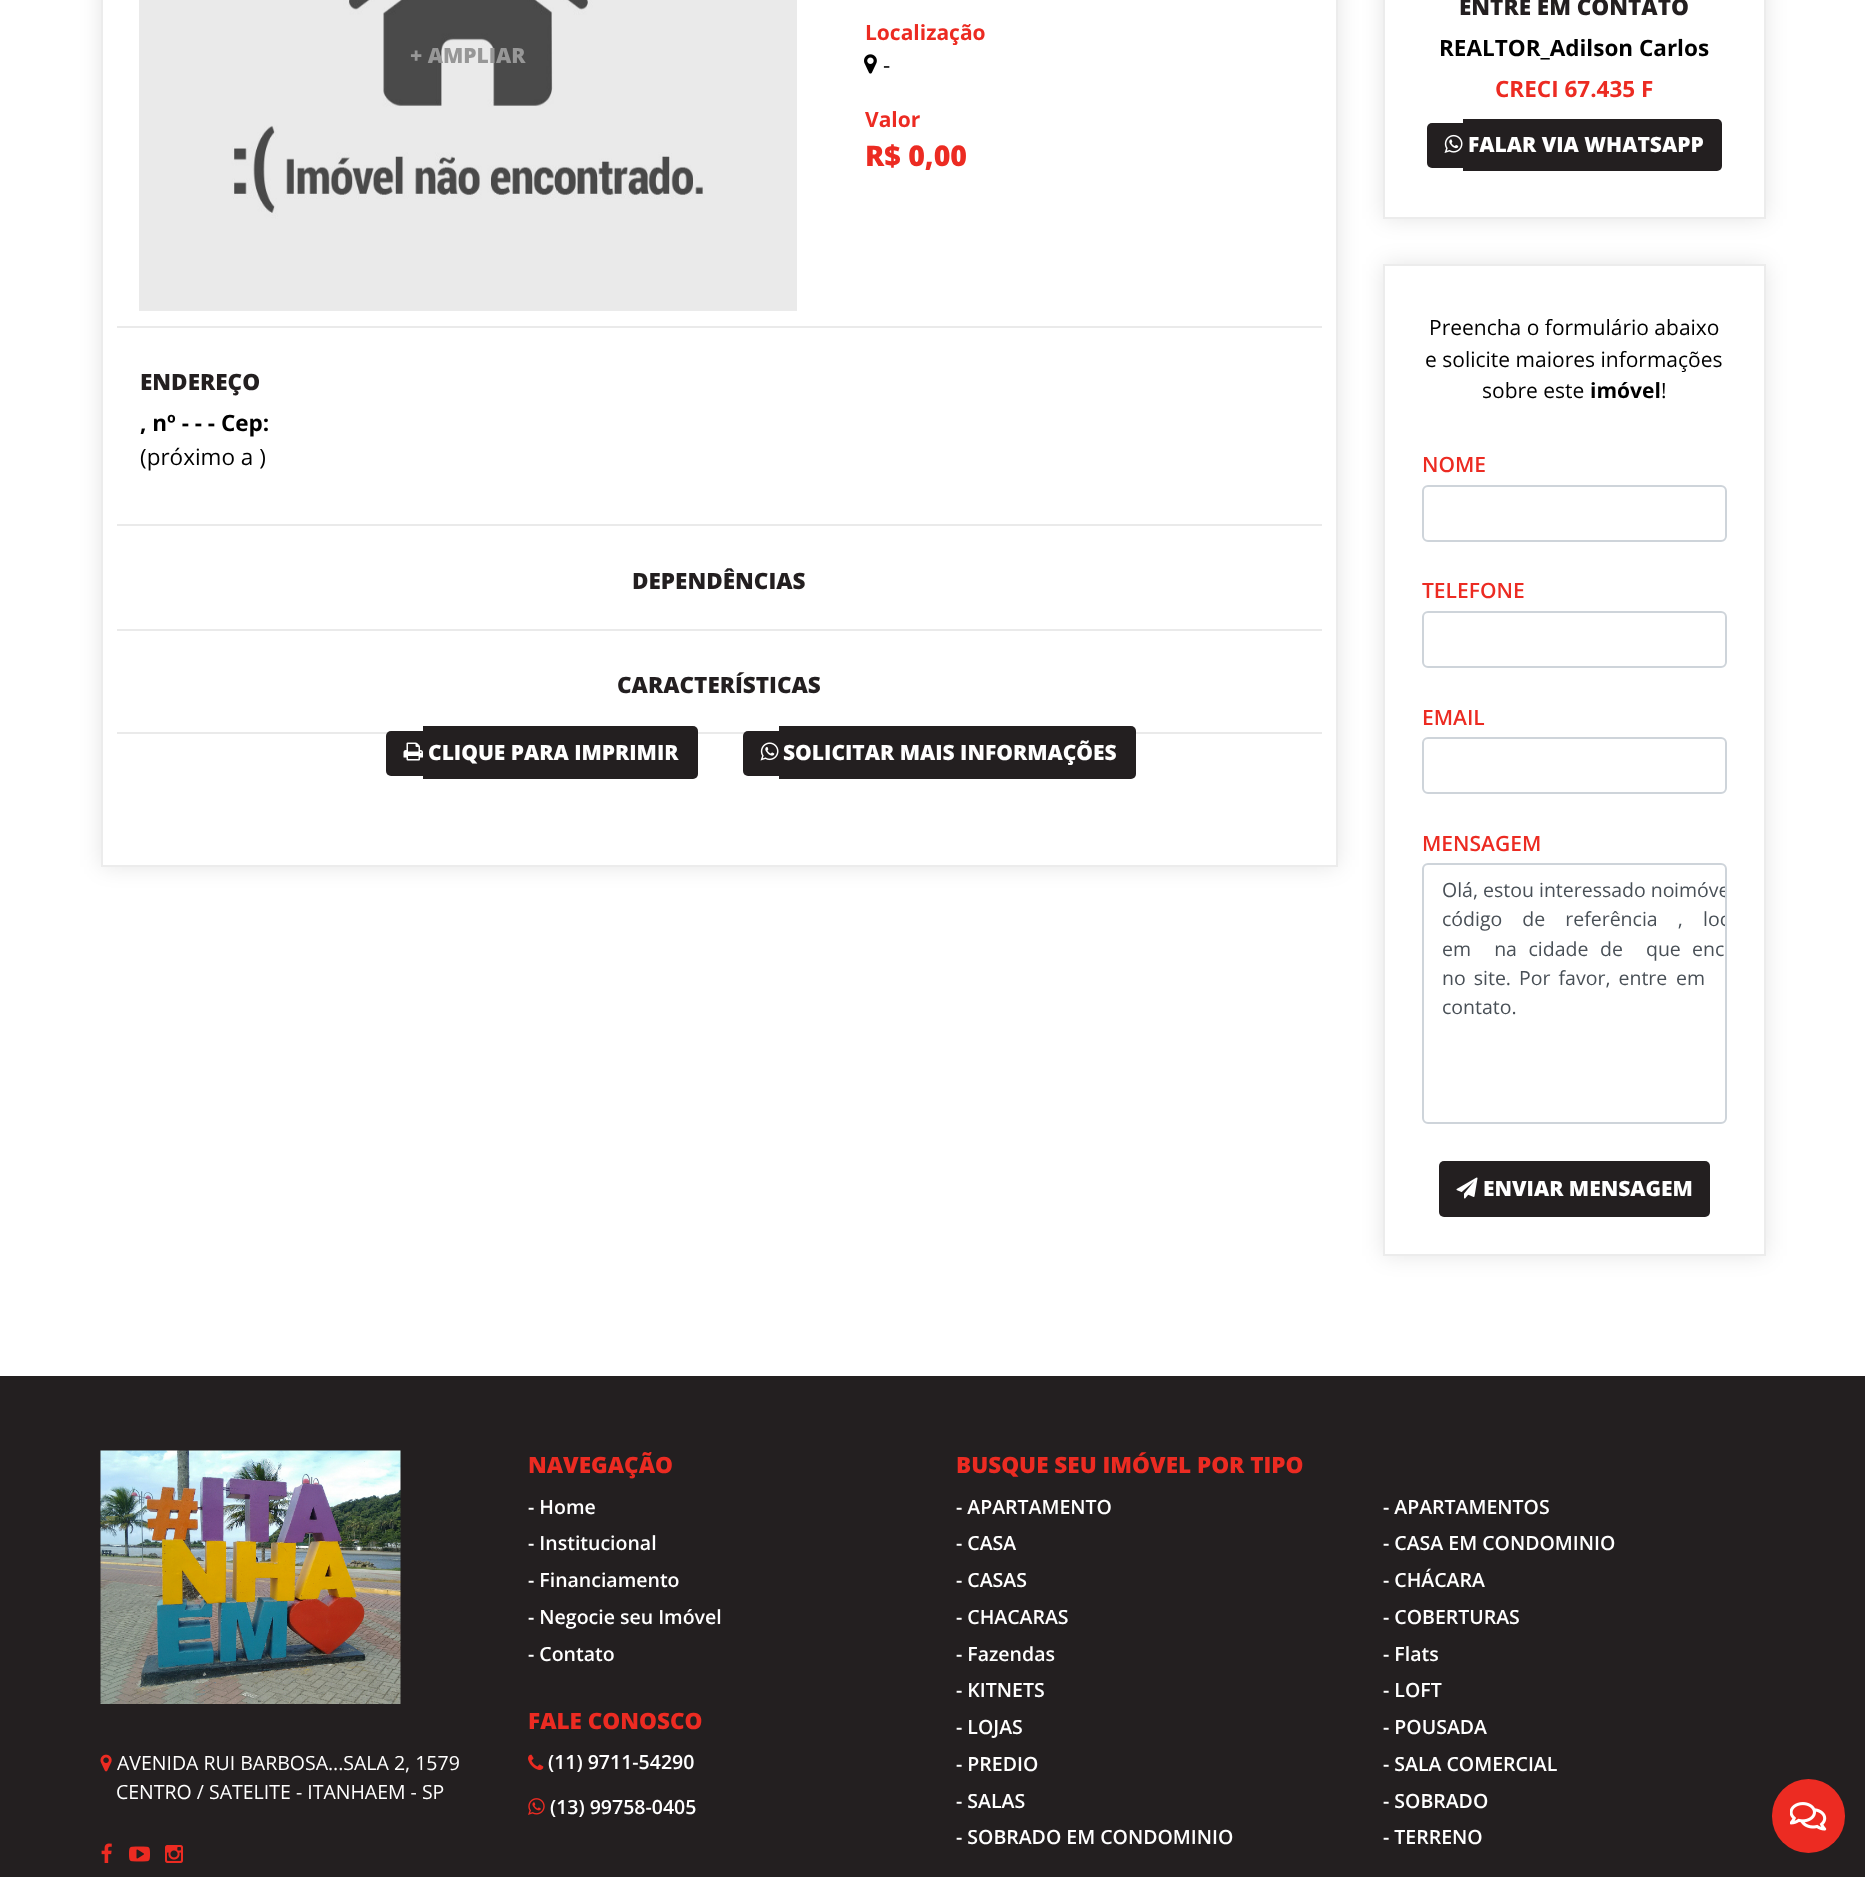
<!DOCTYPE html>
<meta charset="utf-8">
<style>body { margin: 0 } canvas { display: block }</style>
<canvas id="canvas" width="1865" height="1877"></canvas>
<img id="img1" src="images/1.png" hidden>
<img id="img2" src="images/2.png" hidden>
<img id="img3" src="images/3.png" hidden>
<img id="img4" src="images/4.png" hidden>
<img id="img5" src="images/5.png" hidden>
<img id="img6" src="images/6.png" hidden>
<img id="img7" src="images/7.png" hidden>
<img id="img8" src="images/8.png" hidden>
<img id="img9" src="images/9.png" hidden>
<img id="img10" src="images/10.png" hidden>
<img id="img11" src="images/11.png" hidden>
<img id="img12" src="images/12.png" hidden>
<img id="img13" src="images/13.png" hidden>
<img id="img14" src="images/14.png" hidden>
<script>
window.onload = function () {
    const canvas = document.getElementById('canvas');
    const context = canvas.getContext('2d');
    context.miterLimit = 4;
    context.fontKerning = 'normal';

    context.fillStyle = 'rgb(255, 255, 255)';
    context.fillRect(0, 0, 1865, 1877);
    context.save();
    context.beginPath();
    context.moveTo(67, 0);
    context.lineTo(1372, 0);
    context.lineTo(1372, 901);
    context.lineTo(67, 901);
    context.closePath();
    context.moveTo(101, -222);
    context.lineTo(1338, -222);
    context.lineTo(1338, 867);
    context.lineTo(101, 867);
    context.closePath();
    context.clip('evenodd');
    context.fillStyle = 'rgba(0, 0, 0, 0.1)';
    context.filter = 'blur(11px)';
    context.beginPath();
    context.rect(101, -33, 1237, 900);
    context.fill();
    context.filter = 'none';
    context.restore();
    context.strokeStyle = 'rgb(236, 236, 236)';
    context.lineWidth = 2;
    context.strokeRect(102, -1, 1235, 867);
    context.drawImage(document.getElementById('img1'), 139, 0, 658, 311);
    context.drawImage(document.getElementById('img2'), 864, 54, 13, 20);
    context.fillStyle = 'rgb(234, 234, 234)';
    context.fillRect(117, 326, 1205, 2);
    context.fillRect(117, 524, 1205, 2);
    context.fillRect(117, 629, 1205, 2);
    context.fillRect(117, 732, 1205, 2);
    context.fillStyle = 'rgb(35, 31, 32)';
    context.beginPath();
    context.roundRect(386, 731, 37, 45, [5, 0, 0, 5]);
    context.fill();
    context.beginPath();
    context.roundRect(423, 726, 275, 53, [0, 5, 5, 0]);
    context.fill();
    context.drawImage(document.getElementById('img3'), 403, 742, 20, 19);
    context.beginPath();
    context.roundRect(743, 731, 36, 45, [5, 0, 0, 5]);
    context.fill();
    context.beginPath();
    context.roundRect(779, 726, 357, 53, [0, 5, 5, 0]);
    context.fill();
    context.drawImage(document.getElementById('img4'), 760, 742, 19, 19);
    context.fillStyle = 'rgba(0, 0, 0, 0.1)';
    context.filter = 'blur(11px)';
    context.beginPath();
    context.rect(1383, -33, 383, 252);
    context.fill();
    context.filter = 'none';
    context.fillStyle = 'rgb(255, 255, 255)';
    context.beginPath();
    context.rect(1384, -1, 381, 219);
    context.fill();
    context.stroke();
    context.fillStyle = 'rgb(35, 31, 32)';
    context.beginPath();
    context.roundRect(1427, 123, 36, 45, [5, 0, 0, 5]);
    context.fill();
    context.beginPath();
    context.roundRect(1463, 119, 259, 52, [0, 5, 5, 0]);
    context.fill();
    context.drawImage(document.getElementById('img5'), 1444, 134, 19, 19);
    context.fillStyle = 'rgba(0, 0, 0, 0.1)';
    context.filter = 'blur(11px)';
    context.beginPath();
    context.rect(1383, 264, 383, 992);
    context.fill();
    context.filter = 'none';
    context.fillStyle = 'rgb(255, 255, 255)';
    context.beginPath();
    context.rect(1384, 265, 381, 990);
    context.fill();
    context.stroke();
    context.beginPath();
    context.roundRect(1423, 486, 303, 55, 5);
    context.strokeStyle = 'rgb(206, 212, 218)';
    context.stroke();
    context.beginPath();
    context.roundRect(1423, 612, 303, 55, 5);
    context.stroke();
    context.beginPath();
    context.roundRect(1423, 738, 303, 55, 5);
    context.stroke();
    context.beginPath();
    context.roundRect(1423, 864, 303, 259, 5);
    context.stroke();
    context.fillStyle = 'rgb(35, 31, 32)';
    context.beginPath();
    context.roundRect(1439, 1161, 271, 56, 5);
    context.fill();
    context.drawImage(document.getElementById('img6'), 1456, 1177, 22, 22);
    context.fillRect(0, 1376, 1865, 501);
    context.drawImage(document.getElementById('img7'), 100, 1450, 301, 254);
    context.drawImage(document.getElementById('img8'), 100, 1754, 12, 18);
    context.drawImage(document.getElementById('img9'), 101, 1843, 11, 20);
    context.drawImage(document.getElementById('img10'), 129, 1846, 21, 16);
    context.drawImage(document.getElementById('img11'), 165, 1845, 18, 18);
    context.drawImage(document.getElementById('img12'), 528, 1754, 16, 16);
    context.drawImage(document.getElementById('img13'), 528, 1798, 17, 17);
    context.fillStyle = 'rgb(236, 43, 34)';
    context.beginPath();
    context.roundRect(1772, 1779, 73, 74, 36.5);
    context.fill();
    context.drawImage(document.getElementById('img14'), 1790, 1802, 37, 29);
    context.font = '800 21px Open Sans';
    context.fillStyle = 'rgb(151, 151, 151)';
    context.fillText('+ AMPLIAR', 410, 63);
    context.font = 'bold 21px Open Sans';
    context.fillStyle = 'rgb(236, 43, 34)';
    context.fillText('Localização', 865, 40);
    context.font = '22.5px Open Sans';
    context.fillStyle = 'rgb(0, 0, 0)';
    context.fillText('-', 883, 73);
    context.font = 'bold 21px Open Sans';
    context.fillStyle = 'rgb(236, 43, 34)';
    context.fillText('Valor', 865, 127);
    context.font = '800 28.5px Open Sans';
    context.fillText('R$ 0,00', 865, 166);
    context.font = '800 22.5px Open Sans';
    context.fillStyle = 'rgb(35, 31, 32)';
    context.fillText('ENDEREÇO', 140, 390);
    context.font = 'bold 22.5px Open Sans';
    context.fillStyle = 'rgb(0, 0, 0)';
    context.fillText(', nº - - - Cep:', 140, 431);
    context.font = '22.5px Open Sans';
    context.fillText('(próximo a )', 140, 465);
    context.font = '800 22.5px Open Sans';
    context.fillStyle = 'rgb(35, 31, 32)';
    context.fillText('DEPENDÊNCIAS', 632, 589);
    context.fillText('CARACTERÍSTICAS', 617, 693);
    context.font = '800 21px Open Sans';
    context.fillStyle = 'rgb(255, 255, 255)';
    context.fillText('CLIQUE PARA IMPRIMIR', 428, 760);
    context.fillText('SOLICITAR MAIS INFORMAÇÕES', 783, 760);
    context.font = '800 22.5px Open Sans';
    context.fillStyle = 'rgb(35, 31, 32)';
    context.fillText('ENTRE EM CONTATO', 1459, 15);
    context.font = 'bold 22.5px Open Sans';
    context.fillStyle = 'rgb(0, 0, 0)';
    context.fillText('REALTOR_Adilson Carlos', 1439, 56);
    context.fillStyle = 'rgb(236, 43, 34)';
    context.fillText('CRECI 67.435 F', 1495, 97);
    context.font = '800 21px Open Sans';
    context.fillStyle = 'rgb(255, 255, 255)';
    context.fillText('FALAR VIA WHATSAPP', 1468, 152);
    context.font = '21px Open Sans';
    context.fillStyle = 'rgb(0, 0, 0)';
    context.fillText('Preencha o formulário abaixo', 1429, 335);
    context.fillText('e solicite maiores informações', 1425, 367);
    context.fillText('sobre este', 1482, 398);
    context.font = 'bold 21px Open Sans';
    context.fillText('imóvel', 1590, 398);
    context.font = '21px Open Sans';
    context.fillText('!', 1661, 398);
    context.font = '600 21px Open Sans';
    context.fillStyle = 'rgb(236, 43, 34)';
    context.fillText('NOME', 1422, 472);
    context.fillText('TELEFONE', 1422, 598);
    context.fillText('EMAIL', 1422, 725);
    context.fillText('MENSAGEM', 1422, 851);
    context.font = '19.5px Open Sans';
    context.fillStyle = 'rgb(73, 80, 87)';
    context.fillText('Olá, estou interessado no', 1442, 897);
    context.save();
    context.beginPath();
    context.roundRect(1424, 864, 301, 258, 5);
    context.clip();
    context.fillText('imóve', 1674, 897);
    context.restore();
    context.wordSpacing = '15px';
    context.fillText('código de referência ,', 1442, 926);
    context.save();
    context.beginPath();
    context.roundRect(1424, 864, 301, 258, 5);
    context.clip();
    context.wordSpacing = '0px';
    context.fillText('loc', 1703, 926);
    context.restore();
    context.wordSpacing = '6.5px';
    context.fillText('em  na cidade de  que', 1442, 956);
    context.wordSpacing = '0px';
    context.fillText('enc', 1692, 956);
    context.wordSpacing = '3px';
    context.fillText('no site. Por favor, entre', 1442, 985);
    context.wordSpacing = '0px';
    context.fillText('em', 1676, 985);
    context.fillText('contato.', 1442, 1014);
    context.font = '800 21px Open Sans';
    context.fillStyle = 'rgb(255, 255, 255)';
    context.fillText('ENVIAR MENSAGEM', 1483, 1196);
    context.font = '19.5px Open Sans';
    context.fillText('AVENIDA RUI BARBOSA...SALA 2, 1579', 117, 1770);
    context.fillText('CENTRO / SATELITE - ITANHAEM - SP', 116, 1799);
    context.font = '800 22.5px Open Sans';
    context.fillStyle = 'rgb(236, 43, 34)';
    context.fillText('NAVEGAÇÃO', 528, 1473);
    context.font = '600 19.5px Open Sans';
    context.fillStyle = 'rgb(255, 255, 255)';
    context.fillText('- Home', 528, 1514);
    context.fillText('- Institucional', 528, 1550);
    context.fillText('- Financiamento', 528, 1587);
    context.fillText('- Negocie seu Imóvel', 528, 1624);
    context.fillText('- Contato', 528, 1661);
    context.font = '800 22.5px Open Sans';
    context.fillStyle = 'rgb(236, 43, 34)';
    context.fillText('FALE CONOSCO', 528, 1729);
    context.font = '600 19.5px Open Sans';
    context.fillStyle = 'rgb(255, 255, 255)';
    context.fillText('(11) 9711-54290', 548, 1769);
    context.fillText('(13) 99758-0405', 550, 1814);
    context.font = '800 22.5px Open Sans';
    context.fillStyle = 'rgb(236, 43, 34)';
    context.fillText('BUSQUE SEU IMÓVEL POR TIPO', 956, 1473);
    context.font = '600 19.5px Open Sans';
    context.fillStyle = 'rgb(255, 255, 255)';
    context.fillText('- APARTAMENTO', 956, 1514);
    context.fillText('- APARTAMENTOS', 1383, 1514);
    context.fillText('- CASA', 956, 1550);
    context.fillText('- CASA EM CONDOMINIO', 1383, 1550);
    context.fillText('- CASAS', 956, 1587);
    context.fillText('- CHÁCARA', 1383, 1587);
    context.fillText('- CHACARAS', 956, 1624);
    context.fillText('- COBERTURAS', 1383, 1624);
    context.fillText('- Fazendas', 956, 1661);
    context.fillText('- Flats', 1383, 1661);
    context.fillText('- KITNETS', 956, 1697);
    context.fillText('- LOFT', 1383, 1697);
    context.fillText('- LOJAS', 956, 1734);
    context.fillText('- POUSADA', 1383, 1734);
    context.fillText('- PREDIO', 956, 1771);
    context.fillText('- SALA COMERCIAL', 1383, 1771);
    context.fillText('- SALAS', 956, 1808);
    context.fillText('- SOBRADO', 1383, 1808);
    context.fillText('- SOBRADO EM CONDOMINIO', 956, 1844);
    context.fillText('- TERRENO', 1383, 1844);
};
</script>
